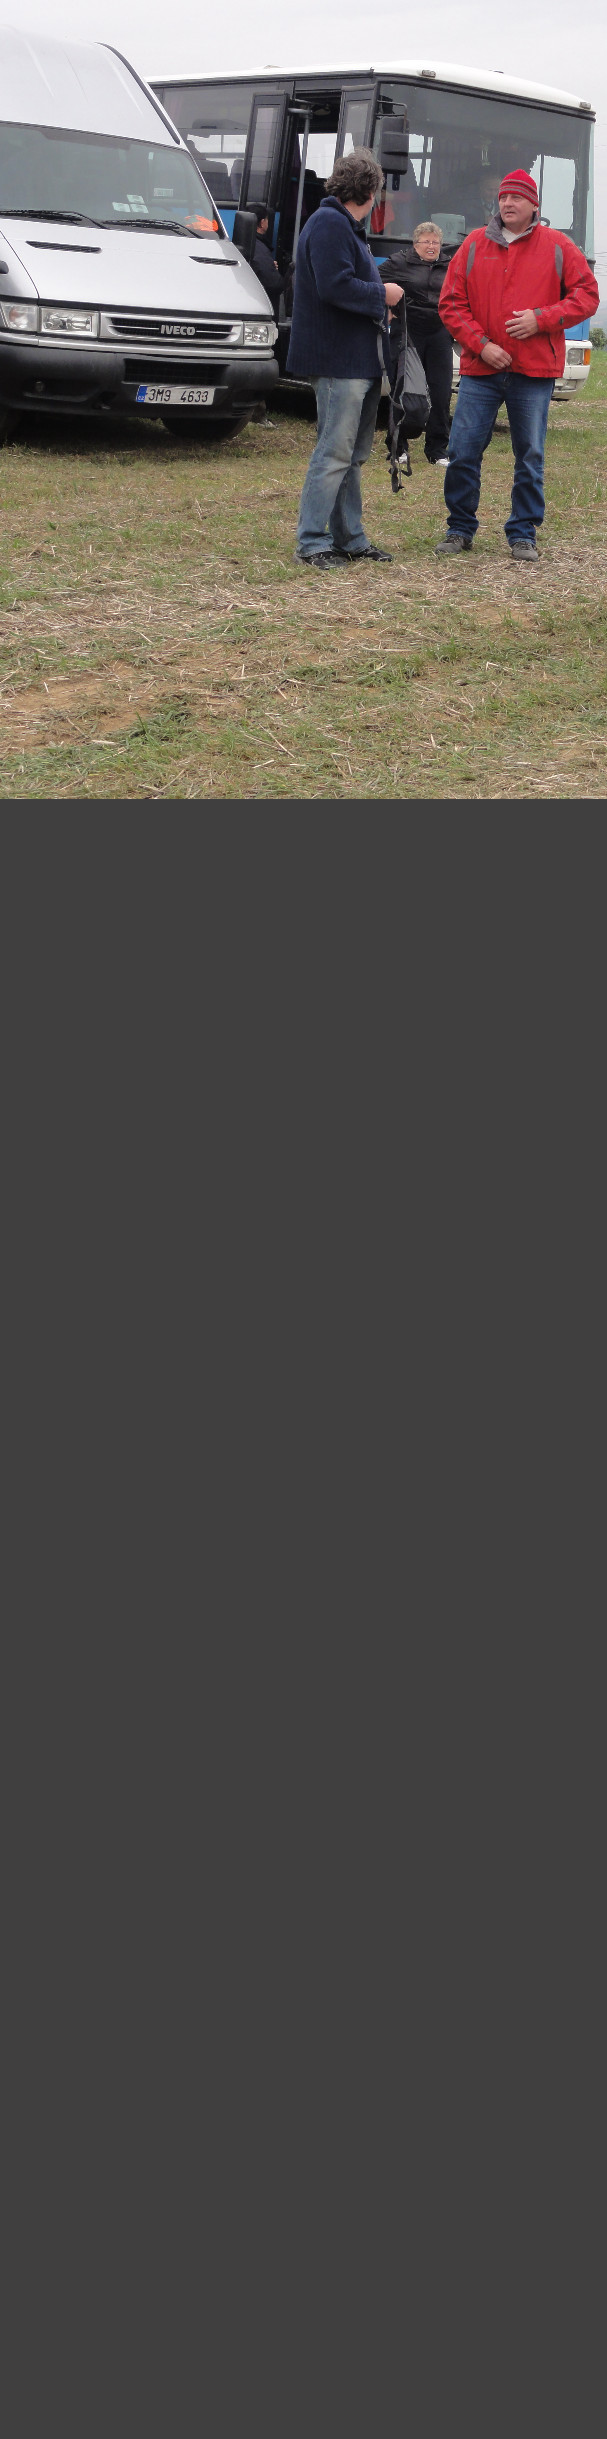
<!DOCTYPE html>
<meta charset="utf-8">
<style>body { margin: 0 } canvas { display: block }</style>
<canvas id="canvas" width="607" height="2439"></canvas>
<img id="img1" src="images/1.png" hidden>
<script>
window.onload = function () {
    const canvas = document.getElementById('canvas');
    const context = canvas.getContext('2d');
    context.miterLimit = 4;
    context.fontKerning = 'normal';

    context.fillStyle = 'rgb(64, 63, 63)';
    context.fillRect(0, 0, 607, 2439);
    context.drawImage(document.getElementById('img1'), 0, 0, 607, 799);
};
</script>
